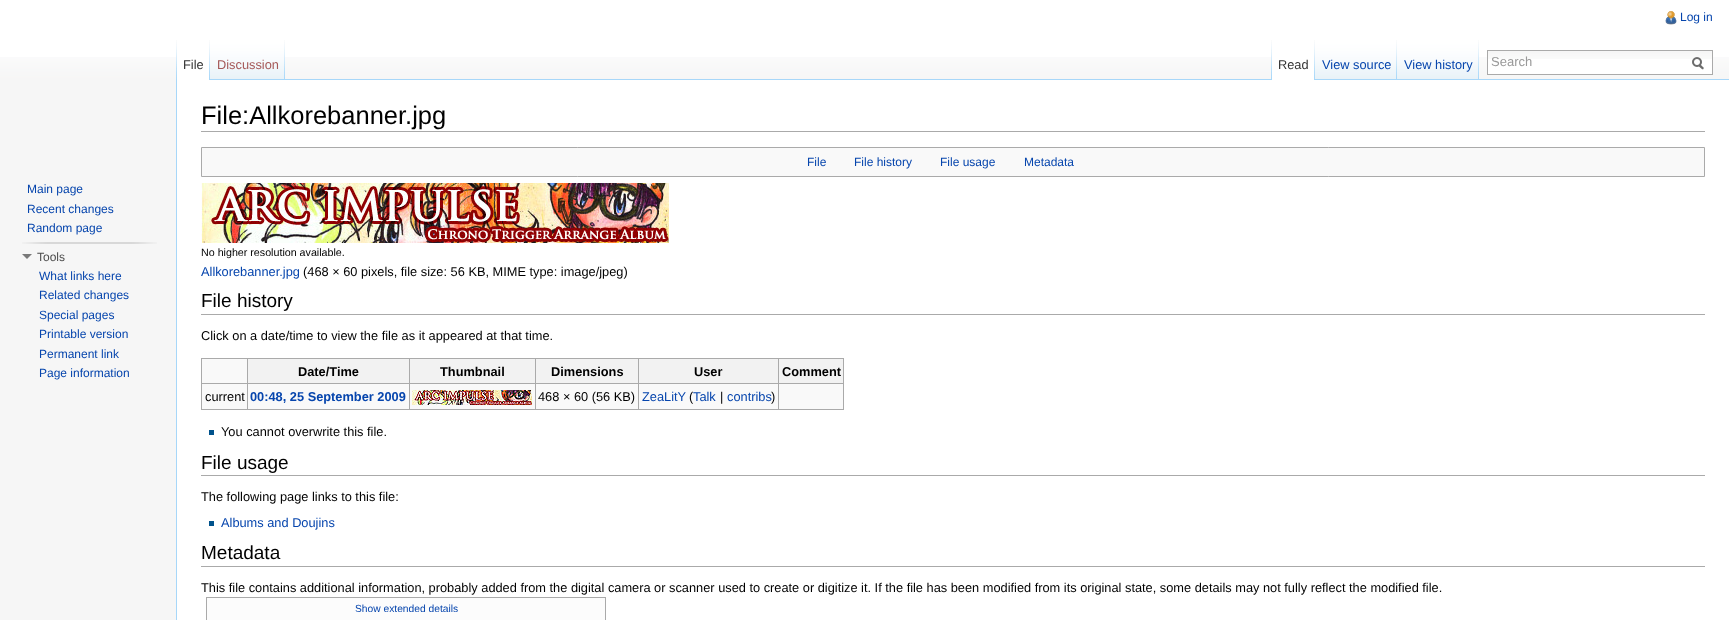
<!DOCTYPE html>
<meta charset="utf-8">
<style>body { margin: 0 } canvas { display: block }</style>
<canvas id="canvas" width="1729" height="620"></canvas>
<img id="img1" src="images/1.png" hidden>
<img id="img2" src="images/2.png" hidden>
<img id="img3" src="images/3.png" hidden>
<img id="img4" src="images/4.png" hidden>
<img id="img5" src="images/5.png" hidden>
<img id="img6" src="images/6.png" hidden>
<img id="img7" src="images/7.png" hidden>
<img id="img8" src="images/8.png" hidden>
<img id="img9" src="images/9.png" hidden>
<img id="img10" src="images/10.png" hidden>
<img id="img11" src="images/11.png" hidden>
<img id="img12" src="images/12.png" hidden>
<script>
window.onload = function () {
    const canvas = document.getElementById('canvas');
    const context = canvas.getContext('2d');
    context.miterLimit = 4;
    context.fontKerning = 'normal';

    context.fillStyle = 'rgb(246, 246, 246)';
    context.fillRect(0, 0, 1729, 620);
    context.fillStyle = 'rgb(255, 255, 255)';
    context.fillRect(0, 0, 1729, 57);
    context.drawImage(document.getElementById('img1'), 0, 57, 1729, 23);
    context.drawImage(document.getElementById('img2'), 1665, 11, 12, 14);
    context.drawImage(document.getElementById('img3'), 176, 40, 1, 39);
    context.fillRect(177, 57, 32, 23);
    context.drawImage(document.getElementById('img4'), 209, 40, 1, 40);
    context.drawImage(document.getElementById('img5'), 210, 40, 75, 40);
    context.drawImage(document.getElementById('img6'), 284, 40, 1, 39);
    context.drawImage(document.getElementById('img3'), 1271, 40, 1, 39);
    context.fillStyle = 'rgb(167, 215, 249)';
    context.fillRect(285, 79, 1444, 1);
    context.fillStyle = 'rgb(255, 255, 255)';
    context.fillRect(1272, 57, 42, 23);
    context.drawImage(document.getElementById('img4'), 1314, 40, 1, 40);
    context.drawImage(document.getElementById('img7'), 1315, 40, 82, 40);
    context.drawImage(document.getElementById('img6'), 1396, 40, 1, 39);
    context.drawImage(document.getElementById('img7'), 1397, 40, 82, 40);
    context.drawImage(document.getElementById('img6'), 1478, 40, 1, 39);
    context.fillRect(1488, 59, 224, 15);
    context.drawImage(document.getElementById('img8'), 1488, 51, 224, 8);
    context.strokeStyle = 'rgb(170, 170, 170)';
    context.strokeRect(1487.5, 50.5, 225, 24);
    context.drawImage(document.getElementById('img9'), 1692, 57, 12, 13);
    context.drawImage(document.getElementById('img10'), 22, 242, 135, 2);
    context.fillStyle = 'rgb(121, 121, 121)';
    context.beginPath();
    context.moveTo(32, 254);
    context.lineTo(27, 259);
    context.lineTo(22, 254);
    context.closePath();
    context.fill();
    context.fillStyle = 'rgb(255, 255, 255)';
    context.fillRect(177, 80, 1552, 540);
    context.fillStyle = 'rgb(167, 215, 249)';
    context.fillRect(176, 79, 1, 541);
    context.fillStyle = 'rgb(170, 170, 170)';
    context.fillRect(201, 131, 1504, 1);
    context.fillStyle = 'rgb(249, 249, 249)';
    context.beginPath();
    context.rect(201.5, 147.5, 1503, 29);
    context.fill();
    context.stroke();
    context.drawImage(document.getElementById('img11'), 201, 183, 468, 60);
    context.fillStyle = 'rgb(170, 170, 170)';
    context.fillRect(201, 314, 1504, 1);
    context.fillStyle = 'rgb(249, 249, 249)';
    context.fillRect(202, 359, 641, 50);
    context.fillStyle = 'rgb(170, 170, 170)';
    context.fillRect(201, 358, 643, 1);
    context.fillRect(843, 358, 1, 52);
    context.fillRect(201, 409, 643, 1);
    context.fillRect(201, 358, 1, 52);
    context.fillStyle = 'rgb(242, 242, 242)';
    context.fillRect(248, 359, 161, 24);
    context.fillStyle = 'rgb(170, 170, 170)';
    context.fillRect(778, 383, 66, 1);
    context.fillRect(778, 383, 1, 27);
    context.fillRect(638, 383, 141, 1);
    context.fillRect(638, 383, 1, 27);
    context.fillRect(535, 383, 104, 1);
    context.fillRect(535, 383, 1, 27);
    context.fillRect(409, 383, 127, 1);
    context.fillRect(409, 383, 1, 27);
    context.fillRect(247, 383, 163, 1);
    context.fillRect(247, 383, 1, 27);
    context.fillRect(201, 383, 47, 1);
    context.fillRect(247, 358, 1, 26);
    context.fillStyle = 'rgb(242, 242, 242)';
    context.fillRect(410, 359, 125, 24);
    context.fillStyle = 'rgb(170, 170, 170)';
    context.fillRect(409, 358, 1, 26);
    context.fillStyle = 'rgb(242, 242, 242)';
    context.fillRect(536, 359, 102, 24);
    context.fillStyle = 'rgb(170, 170, 170)';
    context.fillRect(535, 358, 1, 26);
    context.fillStyle = 'rgb(242, 242, 242)';
    context.fillRect(639, 359, 139, 24);
    context.fillStyle = 'rgb(170, 170, 170)';
    context.fillRect(638, 358, 1, 26);
    context.fillStyle = 'rgb(242, 242, 242)';
    context.fillRect(779, 359, 64, 24);
    context.fillStyle = 'rgb(170, 170, 170)';
    context.fillRect(778, 358, 1, 26);
    context.drawImage(document.getElementById('img12'), 412, 390, 120, 15);
    context.fillStyle = 'rgb(0, 82, 140)';
    context.fillRect(209, 430, 5, 5);
    context.fillStyle = 'rgb(170, 170, 170)';
    context.fillRect(201, 475, 1504, 1);
    context.fillStyle = 'rgb(0, 82, 140)';
    context.fillRect(209, 521, 5, 5);
    context.fillStyle = 'rgb(170, 170, 170)';
    context.fillRect(201, 566, 1504, 1);
    context.fillStyle = 'rgb(252, 252, 252)';
    context.fillRect(207, 598, 398, 22);
    context.fillStyle = 'rgb(170, 170, 170)';
    context.fillRect(206, 597, 400, 1);
    context.fillRect(605, 597, 1, 23);
    context.fillRect(206, 597, 1, 23);
    context.font = '12px Liberation Sans';
    context.fillStyle = 'rgb(6, 69, 173)';
    context.fillText('Log in', 1680, 21);
    context.font = '12.8px Liberation Sans';
    context.fillStyle = 'rgb(51, 51, 51)';
    context.fillText('File', 183, 69);
    context.fillStyle = 'rgb(165, 88, 88)';
    context.fillText('Discussion', 217, 69);
    context.fillStyle = 'rgb(51, 51, 51)';
    context.fillText('Read', 1278, 69);
    context.fillStyle = 'rgb(6, 69, 173)';
    context.fillText('View source', 1322, 69);
    context.fillText('View history', 1404, 69);
    context.font = '13px Liberation Sans';
    context.fillStyle = 'rgb(153, 153, 153)';
    context.fillText('Search', 1491, 66);
    context.font = '12px Liberation Sans';
    context.fillStyle = 'rgb(6, 69, 173)';
    context.fillText('Main page', 27, 193);
    context.fillText('Recent changes', 27, 213);
    context.fillText('Random page', 27, 232);
    context.fillStyle = 'rgb(77, 77, 77)';
    context.fillText('Tools', 37, 261);
    context.fillStyle = 'rgb(6, 69, 173)';
    context.fillText('What links here', 39, 280);
    context.fillText('Related changes', 39, 299);
    context.fillText('Special pages', 39, 319);
    context.fillText('Printable version', 39, 338);
    context.fillText('Permanent link', 39, 358);
    context.fillText('Page information', 39, 377);
    context.font = '25.5px Liberation Sans';
    context.fillStyle = 'rgb(0, 0, 0)';
    context.fillText('File:Allkorebanner.jpg', 201, 124);
    context.font = '12px Liberation Sans';
    context.fillStyle = 'rgb(6, 69, 173)';
    context.fillText('File', 807, 166);
    context.fillText('File history', 854, 166);
    context.fillText('File usage', 940, 166);
    context.fillText('Metadata', 1024, 166);
    context.font = '10.7px Liberation Sans';
    context.fillStyle = 'rgb(0, 0, 0)';
    context.fillText('No higher resolution available.', 201, 256);
    context.font = '12.8px Liberation Sans';
    context.fillStyle = 'rgb(6, 69, 173)';
    context.fillText('Allkorebanner.jpg', 201, 276);
    context.fillStyle = 'rgb(0, 0, 0)';
    context.fillText('(468 × 60 pixels, file size: 56 KB, MIME type: image/jpeg)', 303, 276);
    context.font = '19px Liberation Sans';
    context.fillText('File history', 201, 307);
    context.font = '12.8px Liberation Sans';
    context.fillText('Click on a date/time to view the file as it appeared at that time.', 201, 340);
    context.font = 'bold 12.8px Liberation Sans';
    context.fillText('Date/Time', 298, 376);
    context.fillText('Thumbnail', 440, 376);
    context.fillText('Dimensions', 551, 376);
    context.fillText('User', 694, 376);
    context.fillText('Comment', 782, 376);
    context.font = '12.8px Liberation Sans';
    context.fillText('current', 205, 401);
    context.font = 'bold 12.8px Liberation Sans';
    context.fillStyle = 'rgb(6, 69, 173)';
    context.fillText('00:48, 25 September 2009', 250, 401);
    context.font = '12.8px Liberation Sans';
    context.fillStyle = 'rgb(0, 0, 0)';
    context.fillText('468 × 60 (56 KB)', 538, 401);
    context.fillStyle = 'rgb(6, 69, 173)';
    context.fillText('ZeaLitY', 642, 401);
    context.fillStyle = 'rgb(0, 0, 0)';
    context.fillText('(', 689, 401);
    context.fillStyle = 'rgb(6, 69, 173)';
    context.fillText('Talk', 693, 401);
    context.fillStyle = 'rgb(0, 0, 0)';
    context.fillText('|', 720, 401);
    context.fillStyle = 'rgb(6, 69, 173)';
    context.fillText('contribs', 727, 401);
    context.fillStyle = 'rgb(0, 0, 0)';
    context.fillText(')', 771, 401);
    context.fillText('You cannot overwrite this file.', 221, 436);
    context.font = '19px Liberation Sans';
    context.fillText('File usage', 201, 469);
    context.font = '12.8px Liberation Sans';
    context.fillText('The following page links to this file:', 201, 501);
    context.fillStyle = 'rgb(6, 69, 173)';
    context.fillText('Albums and Doujins', 221, 527);
    context.font = '19px Liberation Sans';
    context.fillStyle = 'rgb(0, 0, 0)';
    context.fillText('Metadata', 201, 559);
    context.font = '12.8px Liberation Sans';
    context.fillText('This file contains additional information, probably added from the digital camera or scanner used to create or digitize it. If the file has been modified from its original state, some details may not fully reflect the modified file.', 201, 592);
    context.font = '10.25px Liberation Sans';
    context.fillStyle = 'rgb(6, 69, 173)';
    context.fillText('Show extended details', 355, 612);
};
</script>
